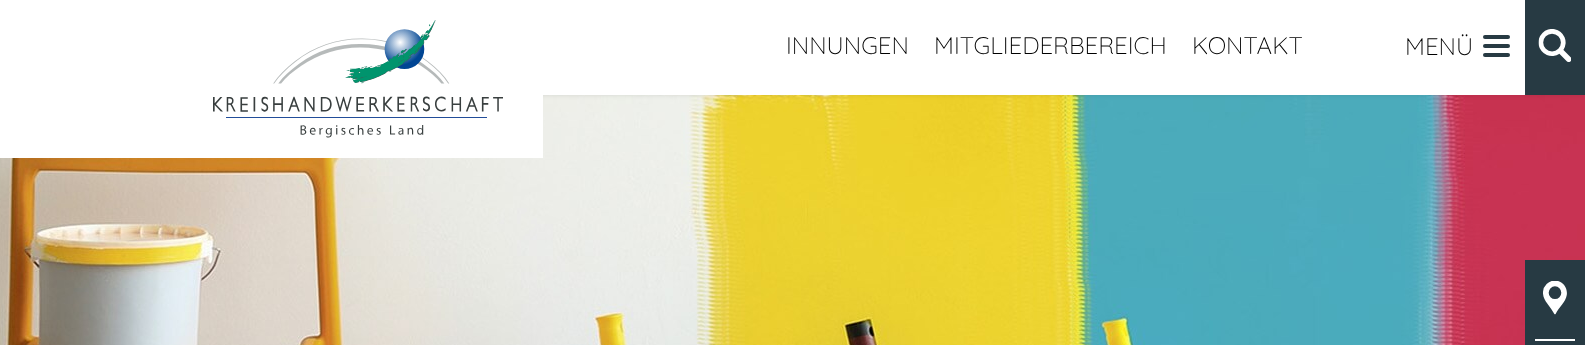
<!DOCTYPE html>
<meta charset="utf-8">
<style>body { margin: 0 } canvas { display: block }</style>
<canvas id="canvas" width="1585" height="345"></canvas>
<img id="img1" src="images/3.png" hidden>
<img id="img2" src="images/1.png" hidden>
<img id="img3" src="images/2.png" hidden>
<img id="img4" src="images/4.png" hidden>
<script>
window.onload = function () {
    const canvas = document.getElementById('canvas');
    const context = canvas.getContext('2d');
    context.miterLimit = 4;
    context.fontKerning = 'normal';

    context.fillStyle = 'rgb(255, 255, 255)';
    context.fillRect(0, 0, 1585, 345);
    context.drawImage(document.getElementById('img1'), 0, 95, 1585, 250);
    context.fillStyle = 'rgba(0, 0, 0, 0.1)';
    context.filter = 'blur(2.5px)';
    context.beginPath();
    context.rect(0, 0, 1585, 95);
    context.fill();
    context.filter = 'none';
    context.fillStyle = 'rgb(255, 255, 255)';
    context.fillRect(0, 0, 1525, 95);
    context.fillRect(0, 95, 543, 63);
    context.drawImage(document.getElementById('img2'), 213, 20, 290, 118);
    context.fillStyle = 'rgb(39, 58, 67)';
    context.beginPath();
    context.roundRect(1483, 35, 27, 4, 2);
    context.fill();
    context.beginPath();
    context.roundRect(1483, 44, 27, 4, 2);
    context.fill();
    context.beginPath();
    context.roundRect(1483, 53, 27, 4, 2);
    context.fill();
    context.fillRect(1525, 0, 60, 95);
    context.drawImage(document.getElementById('img3'), 1538, 29, 33, 33);
    context.fillRect(1525, 260, 60, 85);
    context.drawImage(document.getElementById('img4'), 1543, 281, 24, 34);
    context.fillStyle = 'rgb(255, 255, 255)';
    context.fillRect(1535, 339, 40, 2);
    context.font = '300 24px Quicksand';
    context.fillStyle = 'rgb(0, 0, 0)';
    context.fillText('INNUNGEN', 786, 54);
    context.fillText('MITGLIEDERBEREICH', 934, 54);
    context.fillText('KONTAKT', 1192, 54);
    context.fillText('MENÜ', 1405, 55);
};
</script>
